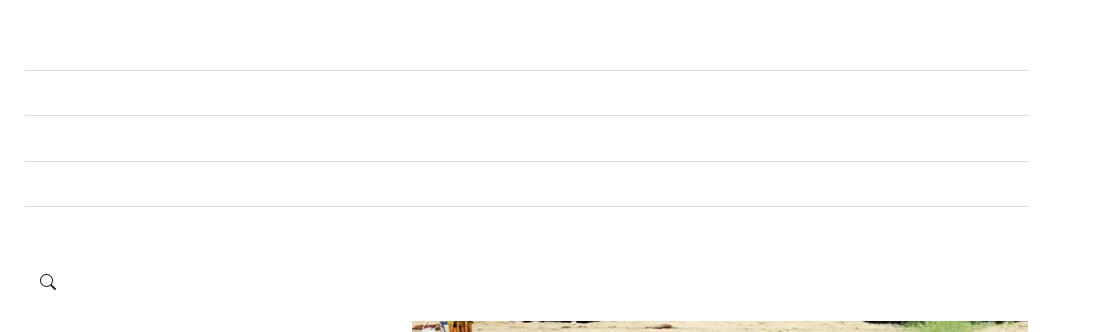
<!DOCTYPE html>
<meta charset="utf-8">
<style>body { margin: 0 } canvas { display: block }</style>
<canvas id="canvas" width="1094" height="332"></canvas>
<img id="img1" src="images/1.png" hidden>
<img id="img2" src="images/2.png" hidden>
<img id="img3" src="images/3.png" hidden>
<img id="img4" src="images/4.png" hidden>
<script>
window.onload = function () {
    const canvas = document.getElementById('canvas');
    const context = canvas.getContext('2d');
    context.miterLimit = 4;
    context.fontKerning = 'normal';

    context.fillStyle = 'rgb(255, 255, 255)';
    context.fillRect(0, 0, 1094, 332);
    context.fillStyle = 'rgb(221, 221, 221)';
    context.fillRect(25, 70, 1004, 1);
    context.fillRect(25, 115, 1004, 1);
    context.fillRect(25, 161, 1004, 1);
    context.fillRect(25, 206, 1004, 1);
    context.drawImage(document.getElementById('img1'), 40, 274, 16, 16);
    context.drawImage(document.getElementById('img2'), 412, 321, 616, 11);
    context.drawImage(document.getElementById('img3'), 422, 321, 17, 11);
    context.drawImage(document.getElementById('img4'), 1003, 321, 15, 11);
};
</script>
